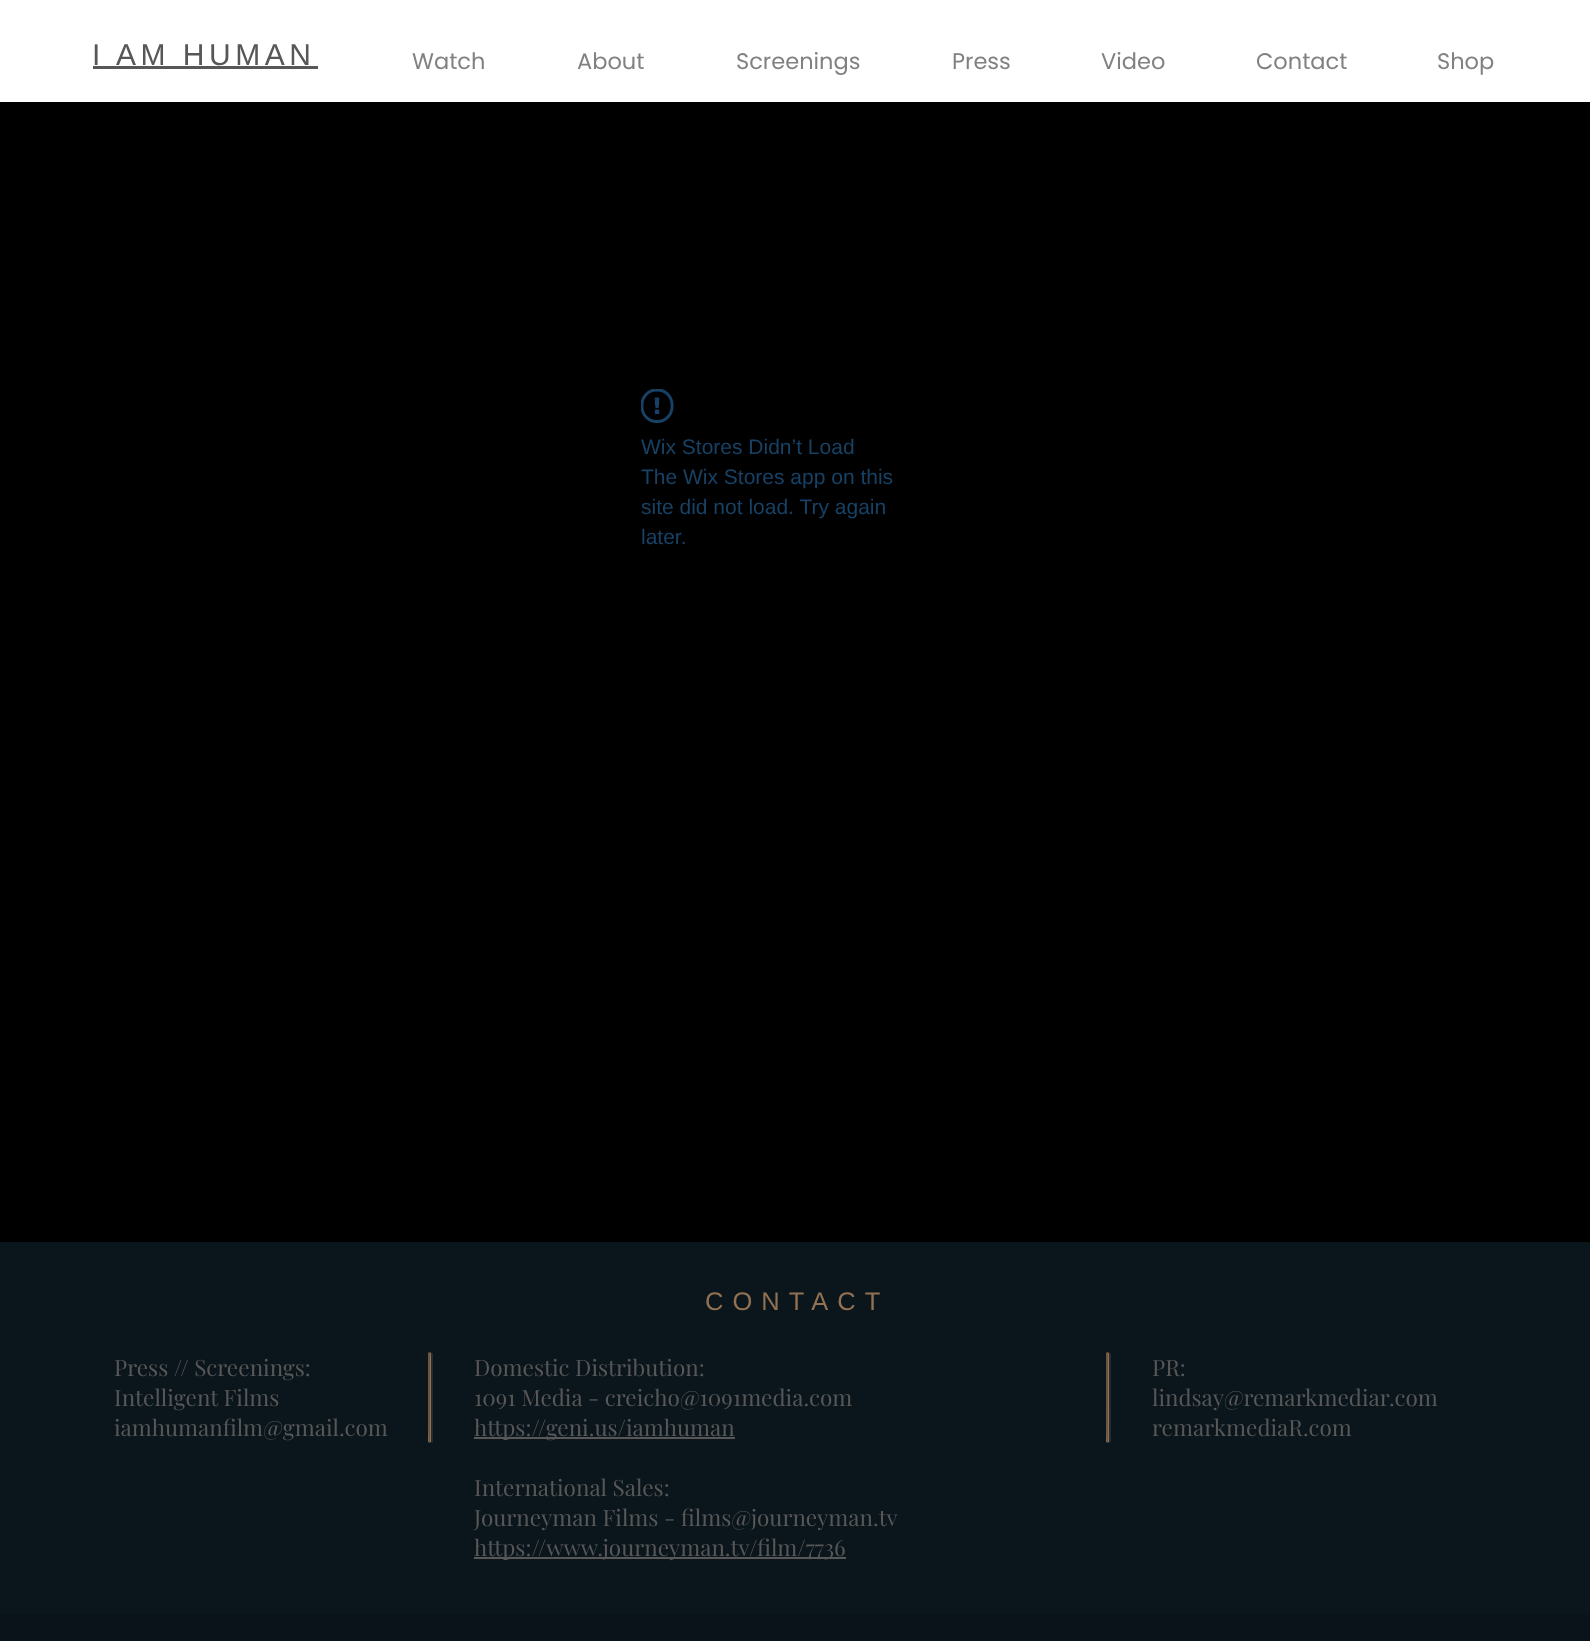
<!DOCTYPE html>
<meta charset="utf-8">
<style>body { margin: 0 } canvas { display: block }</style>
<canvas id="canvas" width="1590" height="1641"></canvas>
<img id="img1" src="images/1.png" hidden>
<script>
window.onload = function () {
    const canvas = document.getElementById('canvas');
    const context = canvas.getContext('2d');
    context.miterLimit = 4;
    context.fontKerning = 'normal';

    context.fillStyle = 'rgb(0, 0, 0)';
    context.fillRect(0, 0, 1590, 1641);
    context.fillStyle = 'rgb(255, 255, 255)';
    context.fillRect(0, 0, 1590, 102);
    context.fillStyle = 'rgb(87, 87, 87)';
    context.fillRect(93, 66, 225, 3);
    context.drawImage(document.getElementById('img1'), 641, 389, 33, 34);
    context.fillStyle = 'rgb(10, 21, 28)';
    context.fillRect(0, 1242, 1590, 372);
    context.fillStyle = 'rgb(35, 44, 51)';
    context.beginPath();
    context.moveTo(430, 1442);
    context.bezierCurveTo(431, 1443, 433, 1443, 433, 1441);
    context.lineTo(433, 1354);
    context.bezierCurveTo(433, 1353, 431, 1352, 430, 1352);
    context.lineTo(431, 1353);
    context.lineTo(431, 1441);
    context.closePath();
    context.fill();
    context.fillStyle = 'rgb(145, 113, 81)';
    context.beginPath();
    context.moveTo(428, 1441);
    context.lineTo(428, 1353);
    context.bezierCurveTo(429, 1352, 431, 1352, 431, 1354);
    context.lineTo(431, 1441);
    context.bezierCurveTo(431, 1443, 428, 1443, 428, 1441);
    context.closePath();
    context.fill();
    context.fillStyle = 'rgba(0, 0, 0, 0.25)';
    context.beginPath();
    context.moveTo(430, 1441);
    context.lineTo(430, 1353);
    context.lineTo(430, 1352);
    context.bezierCurveTo(430, 1352, 428, 1353, 428, 1354);
    context.lineTo(428, 1412);
    context.bezierCurveTo(428, 1414, 428, 1441, 429, 1442);
    context.lineTo(430, 1442);
    context.closePath();
    context.fill();
    context.fillStyle = 'rgb(87, 87, 87)';
    context.fillRect(474, 1437, 261, 2);
    context.fillRect(474, 1557, 372, 2);
    context.fillStyle = 'rgb(35, 44, 51)';
    context.beginPath();
    context.moveTo(1108, 1442);
    context.bezierCurveTo(1109, 1443, 1111, 1443, 1111, 1441);
    context.lineTo(1111, 1354);
    context.bezierCurveTo(1111, 1353, 1109, 1352, 1108, 1352);
    context.lineTo(1109, 1353);
    context.lineTo(1109, 1441);
    context.closePath();
    context.fill();
    context.fillStyle = 'rgb(145, 113, 81)';
    context.beginPath();
    context.moveTo(1106, 1441);
    context.lineTo(1106, 1353);
    context.bezierCurveTo(1107, 1352, 1109, 1352, 1109, 1354);
    context.lineTo(1109, 1441);
    context.bezierCurveTo(1109, 1443, 1106, 1443, 1106, 1441);
    context.closePath();
    context.fill();
    context.fillStyle = 'rgba(0, 0, 0, 0.25)';
    context.beginPath();
    context.moveTo(1108, 1441);
    context.lineTo(1108, 1353);
    context.lineTo(1108, 1352);
    context.bezierCurveTo(1108, 1352, 1106, 1353, 1106, 1354);
    context.lineTo(1106, 1412);
    context.bezierCurveTo(1106, 1414, 1106, 1441, 1107, 1442);
    context.lineTo(1108, 1442);
    context.closePath();
    context.fill();
    context.fillStyle = 'rgb(9, 19, 25)';
    context.fillRect(0, 1614, 1590, 27);
    context.letterSpacing = '4.5px';
    context.font = '30px Liberation Sans';
    context.fillStyle = 'rgb(87, 87, 87)';
    context.fillText('I AM HUMAN', 92, 65);
    context.letterSpacing = '0px';
    context.font = '22.5px Poppins';
    context.fillStyle = 'rgb(129, 129, 129)';
    context.fillText('Watch', 412, 69);
    context.fillText('About', 577, 69);
    context.fillText('Screenings', 736, 69);
    context.fillText('Press', 952, 69);
    context.fillText('Video', 1101, 69);
    context.fillText('Contact', 1256, 69);
    context.fillText('Shop', 1437, 69);
    context.font = '21px Liberation Sans';
    context.fillStyle = 'rgb(23, 65, 101)';
    context.fillText('Wix Stores Didn’t Load', 641, 454);
    context.fillText('The Wix Stores app on this', 641, 484);
    context.fillText('site did not load. Try again', 641, 514);
    context.fillText('later.', 641, 544);
    context.letterSpacing = '9px';
    context.font = '25.5px Liberation Sans';
    context.fillStyle = 'rgb(145, 113, 81)';
    context.fillText('CONTACT', 705, 1310);
    context.letterSpacing = '0px';
    context.font = '22.5px Playfair Display';
    context.fillStyle = 'rgb(87, 87, 87)';
    context.fillText('Press // Screenings:', 114, 1376);
    context.fillText('Intelligent Films', 114, 1406);
    context.fillText('iamhumanfilm@gmail.com', 114, 1436);
    context.fillText('Domestic Distribution:', 474, 1376);
    context.fillText('1091 Media - creicho@1091media.com', 474, 1406);
    context.fillText('https://geni.us/iamhuman', 474, 1436);
    context.fillText('International Sales:', 474, 1496);
    context.fillText('Journeyman Films - films@journeyman.tv', 474, 1526);
    context.fillText('https://www.journeyman.tv/film/7736', 474, 1556);
    context.fillText('PR:', 1152, 1376);
    context.fillText('lindsay@remarkmediar.com', 1152, 1406);
    context.fillText('remarkmediaR.com', 1152, 1436);
};
</script>
